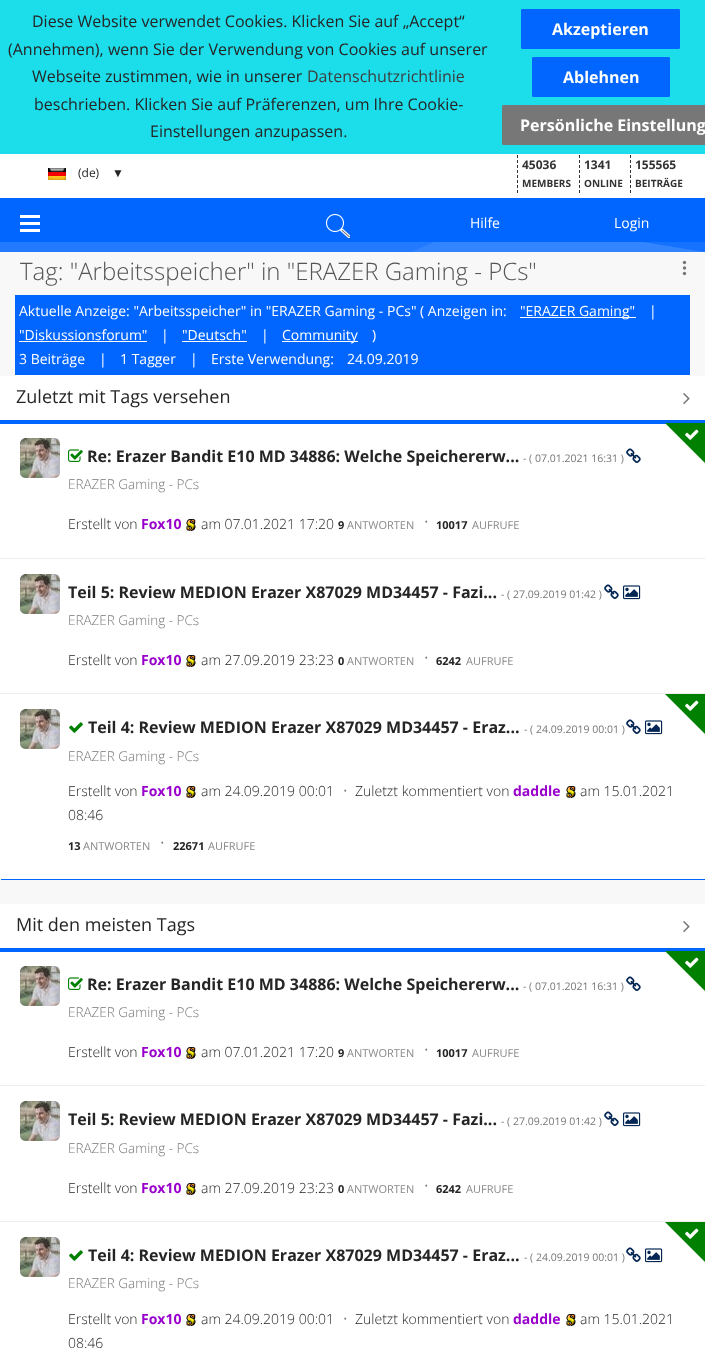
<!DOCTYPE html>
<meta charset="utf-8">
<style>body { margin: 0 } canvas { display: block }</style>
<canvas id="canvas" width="705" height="1348"></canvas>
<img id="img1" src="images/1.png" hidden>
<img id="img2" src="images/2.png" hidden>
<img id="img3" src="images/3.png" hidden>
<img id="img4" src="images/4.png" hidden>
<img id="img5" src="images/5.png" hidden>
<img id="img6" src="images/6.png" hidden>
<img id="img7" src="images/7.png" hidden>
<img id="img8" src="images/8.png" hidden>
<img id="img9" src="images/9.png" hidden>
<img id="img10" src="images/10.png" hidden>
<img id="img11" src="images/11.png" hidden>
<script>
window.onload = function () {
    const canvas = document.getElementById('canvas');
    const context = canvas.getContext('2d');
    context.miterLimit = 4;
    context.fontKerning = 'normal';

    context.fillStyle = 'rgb(248, 248, 248)';
    context.fillRect(0, 0, 705, 1348);
    context.fillStyle = 'rgb(28, 221, 234)';
    context.fillRect(0, 0, 705, 154);
    context.fillStyle = 'rgb(0, 102, 255)';
    context.beginPath();
    context.roundRect(521.5, 9.5, 158, 39, 0.5);
    context.fill();
    context.strokeStyle = 'rgb(0, 102, 255)';
    context.stroke();
    context.beginPath();
    context.roundRect(532.5, 57.5, 137, 39, 0.5);
    context.fill();
    context.stroke();
    context.fillStyle = 'rgb(119, 119, 119)';
    context.beginPath();
    context.roundRect(502.5, 105.5, 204, 39, 0.5);
    context.fill();
    context.strokeStyle = 'rgb(119, 119, 119)';
    context.stroke();
    context.fillStyle = 'rgb(255, 255, 255)';
    context.fillRect(0, 154, 705, 44);
    context.drawImage(document.getElementById('img1'), 48, 168, 18, 12);
    context.beginPath();
    context.moveTo(517.5, 155);
    context.lineTo(517.5, 193);
    context.strokeStyle = 'rgb(51, 51, 51)';
    context.setLineDash([3, 2]);
    context.stroke();
    context.beginPath();
    context.moveTo(579.5, 155);
    context.lineTo(579.5, 193);
    context.stroke();
    context.beginPath();
    context.moveTo(630.5, 155);
    context.lineTo(630.5, 193);
    context.stroke();
    context.fillStyle = 'rgb(0, 102, 255)';
    context.fillRect(0, 198, 705, 44);
    context.drawImage(document.getElementById('img2'), 20, 215, 20, 17);
    context.drawImage(document.getElementById('img3'), 326, 214, 24, 24);
    context.fillRect(644, 242, 61, 10);
    context.save();
    context.beginPath();
    context.rect(0, 242, 705, 10);
    context.clip();
    context.fillStyle = 'rgb(33, 122, 255)';
    context.beginPath();
    context.moveTo(0, 137);
    context.lineTo(705, 252);
    context.lineTo(0, 252);
    context.closePath();
    context.fill();
    context.fillStyle = 'rgba(255, 255, 255, 0.08)';
    context.beginPath();
    context.moveTo(411, 252);
    context.lineTo(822, 252);
    context.lineTo(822, 76);
    context.closePath();
    context.fill();
    context.restore();
    context.fillStyle = 'rgb(119, 119, 119)';
    context.beginPath();
    context.arc(684.5, 262.5, 1.7, 0, 2 * Math.PI);
    context.fill();
    context.beginPath();
    context.arc(684.5, 268, 1.7, 0, 2 * Math.PI);
    context.fill();
    context.beginPath();
    context.arc(684.5, 273.5, 1.7, 0, 2 * Math.PI);
    context.fill();
    context.fillStyle = 'rgb(0, 102, 255)';
    context.fillRect(15, 295, 675, 80);
    context.fillStyle = 'rgb(255, 255, 255)';
    context.fillRect(15, 375, 675, 1);
    context.fillRect(520, 317, 116, 1);
    context.fillRect(19, 341, 128, 1);
    context.fillRect(182, 341, 65, 1);
    context.fillRect(282, 341, 76, 1);
    context.beginPath();
    context.roundRect(0, 376, 705, 504, 1);
    context.fill();
    context.fillStyle = 'rgb(0, 102, 255)';
    context.fillRect(1, 879, 704, 1);
    context.fillRect(0, 420, 705, 4);
    context.drawImage(document.getElementById('img4'), 683, 393, 7, 12);
    context.fillStyle = 'rgb(196, 196, 196)';
    context.filter = 'blur(0.5px)';
    context.beginPath();
    context.roundRect(20, 438, 40, 40, 6);
    context.fill();
    context.filter = 'none';
    context.drawImage(document.getElementById('img5'), 20, 438, 40, 40);
    context.drawImage(document.getElementById('img6'), 68, 449, 15, 13);
    context.drawImage(document.getElementById('img7'), 626, 448, 15, 15);
    context.drawImage(document.getElementById('img8'), 186, 519, 10, 12);
    context.fillStyle = 'rgb(0, 128, 0)';
    context.beginPath();
    context.moveTo(665, 423);
    context.lineTo(705, 423);
    context.lineTo(705, 463);
    context.closePath();
    context.fill();
    context.drawImage(document.getElementById('img9'), 685, 429, 14, 11);
    context.fillStyle = 'rgb(238, 238, 238)';
    context.fillRect(0, 558, 705, 1);
    context.fillStyle = 'rgb(196, 196, 196)';
    context.filter = 'blur(0.5px)';
    context.beginPath();
    context.roundRect(20, 574, 40, 40, 6);
    context.fill();
    context.filter = 'none';
    context.drawImage(document.getElementById('img5'), 20, 574, 40, 40);
    context.drawImage(document.getElementById('img7'), 604, 584, 15, 15);
    context.drawImage(document.getElementById('img10'), 623, 585, 18, 15);
    context.drawImage(document.getElementById('img8'), 186, 655, 10, 12);
    context.fillStyle = 'rgb(238, 238, 238)';
    context.fillRect(0, 693, 705, 1);
    context.fillStyle = 'rgb(196, 196, 196)';
    context.filter = 'blur(0.5px)';
    context.beginPath();
    context.roundRect(20, 709, 40, 40, 6);
    context.fill();
    context.filter = 'none';
    context.drawImage(document.getElementById('img5'), 20, 709, 40, 40);
    context.drawImage(document.getElementById('img11'), 69, 722, 14, 11);
    context.drawImage(document.getElementById('img7'), 626, 719, 15, 15);
    context.drawImage(document.getElementById('img10'), 645, 720, 18, 15);
    context.drawImage(document.getElementById('img8'), 186, 786, 10, 12);
    context.drawImage(document.getElementById('img8'), 566, 786, 10, 12);
    context.fillStyle = 'rgb(0, 128, 0)';
    context.beginPath();
    context.moveTo(665, 694);
    context.lineTo(705, 694);
    context.lineTo(705, 734);
    context.closePath();
    context.fill();
    context.drawImage(document.getElementById('img9'), 685, 700, 14, 11);
    context.fillStyle = 'rgb(255, 255, 255)';
    context.beginPath();
    context.roundRect(0, 904, 705, 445, 1);
    context.fill();
    context.fillStyle = 'rgb(0, 102, 255)';
    context.fillRect(0, 948, 705, 4);
    context.drawImage(document.getElementById('img4'), 683, 921, 7, 12);
    context.fillStyle = 'rgb(196, 196, 196)';
    context.filter = 'blur(0.5px)';
    context.beginPath();
    context.roundRect(20, 966, 40, 40, 6);
    context.fill();
    context.filter = 'none';
    context.drawImage(document.getElementById('img5'), 20, 966, 40, 40);
    context.drawImage(document.getElementById('img6'), 68, 977, 15, 13);
    context.drawImage(document.getElementById('img7'), 626, 976, 15, 15);
    context.drawImage(document.getElementById('img8'), 186, 1047, 10, 12);
    context.fillStyle = 'rgb(0, 128, 0)';
    context.beginPath();
    context.moveTo(665, 951);
    context.lineTo(705, 951);
    context.lineTo(705, 991);
    context.closePath();
    context.fill();
    context.drawImage(document.getElementById('img9'), 685, 957, 14, 11);
    context.fillStyle = 'rgb(238, 238, 238)';
    context.fillRect(0, 1085, 705, 1);
    context.fillStyle = 'rgb(196, 196, 196)';
    context.filter = 'blur(0.5px)';
    context.beginPath();
    context.roundRect(20, 1101, 40, 40, 6);
    context.fill();
    context.filter = 'none';
    context.drawImage(document.getElementById('img5'), 20, 1101, 40, 40);
    context.drawImage(document.getElementById('img7'), 604, 1111, 15, 15);
    context.drawImage(document.getElementById('img10'), 623, 1112, 18, 15);
    context.drawImage(document.getElementById('img8'), 186, 1183, 10, 12);
    context.fillStyle = 'rgb(238, 238, 238)';
    context.fillRect(0, 1221, 705, 1);
    context.fillStyle = 'rgb(196, 196, 196)';
    context.filter = 'blur(0.5px)';
    context.beginPath();
    context.roundRect(20, 1237, 40, 40, 6);
    context.fill();
    context.filter = 'none';
    context.drawImage(document.getElementById('img5'), 20, 1237, 40, 40);
    context.drawImage(document.getElementById('img11'), 69, 1250, 14, 11);
    context.drawImage(document.getElementById('img7'), 626, 1247, 15, 15);
    context.drawImage(document.getElementById('img10'), 645, 1248, 18, 15);
    context.drawImage(document.getElementById('img8'), 186, 1314, 10, 12);
    context.drawImage(document.getElementById('img8'), 566, 1314, 10, 12);
    context.fillStyle = 'rgb(0, 128, 0)';
    context.beginPath();
    context.moveTo(665, 1222);
    context.lineTo(705, 1222);
    context.lineTo(705, 1262);
    context.closePath();
    context.fill();
    context.drawImage(document.getElementById('img9'), 685, 1228, 14, 11);
    context.font = '16px Open Sans';
    context.fillStyle = 'rgb(37, 37, 37)';
    context.fillText('Diese Website verwendet Cookies. Klicken Sie auf „Accept“', 32, 27);
    context.fillText('(Annehmen), wenn Sie der Verwendung von Cookies auf unserer', 8, 55);
    context.fillText('Webseite zustimmen, wie in unserer', 32, 82);
    context.fillStyle = 'rgb(62, 62, 62)';
    context.fillText('Datenschutzrichtlinie', 307, 82);
    context.fillStyle = 'rgb(37, 37, 37)';
    context.fillText('beschrieben. Klicken Sie auf Präferenzen, um Ihre Cookie-', 34, 110);
    context.fillText('Einstellungen anzupassen.', 150, 137);
    context.font = 'bold 16px Open Sans';
    context.fillStyle = 'rgb(255, 255, 255)';
    context.fillText('Akzeptieren', 552, 35);
    context.fillText('Ablehnen', 563, 83);
    context.fillText('Persönliche Einstellung', 520, 131);
    context.font = '12px Open Sans';
    context.fillStyle = 'rgb(37, 37, 37)';
    context.fillText('(de)', 78, 177);
    context.font = '12px Liberation Sans';
    context.fillText('▼', 112, 177);
    context.font = 'bold 12px Open Sans';
    context.fillStyle = 'rgb(51, 51, 51)';
    context.fillText('45036', 522, 169);
    context.font = 'bold 10px Open Sans';
    context.fillText('MEMBERS', 522, 187);
    context.font = 'bold 12px Open Sans';
    context.fillText('1341', 584, 169);
    context.font = 'bold 10px Open Sans';
    context.fillText('ONLINE', 584, 187);
    context.font = 'bold 12px Open Sans';
    context.fillText('155565', 635, 169);
    context.font = 'bold 10px Open Sans';
    context.fillText('BEITRÄGE', 635, 187);
    context.font = '14px Open Sans';
    context.fillStyle = 'rgb(255, 255, 255)';
    context.fillText('Hilfe', 470, 228);
    context.fillText('Login', 614, 228);
    context.font = '300 24px Open Sans';
    context.fillStyle = 'rgb(85, 85, 85)';
    context.fillText('Tag: "Arbeitsspeicher" in "ERAZER Gaming - PCs"', 20, 280);
    context.font = '14px Open Sans';
    context.fillStyle = 'rgb(255, 255, 255)';
    context.fillText('Aktuelle Anzeige: "Arbeitsspeicher" in "ERAZER Gaming - PCs" ( Anzeigen in:', 19, 316);
    context.fillText('"ERAZER Gaming"', 520, 316);
    context.fillText('|', 649, 316);
    context.fillText('"Diskussionsforum"', 19, 340);
    context.fillText('|', 161, 340);
    context.fillText('"Deutsch"', 182, 340);
    context.fillText('|', 261, 340);
    context.fillText('Community', 282, 340);
    context.fillText(')', 372, 340);
    context.fillText('3 Beiträge', 19, 364);
    context.fillText('|', 99, 364);
    context.fillText('1 Tagger', 120, 364);
    context.fillText('|', 190, 364);
    context.fillText('Erste Verwendung:', 211, 364);
    context.fillText('24.09.2019', 347, 364);
    context.font = '18px Open Sans';
    context.fillStyle = 'rgb(37, 37, 37)';
    context.fillText('Zuletzt mit Tags versehen', 16, 403);
    context.font = 'bold 16px Open Sans';
    context.fillText('Re: Erazer Bandit E10 MD 34886: Welche Speichererw...', 87, 462);
    context.font = '10.5px Open Sans';
    context.fillStyle = 'rgb(119, 119, 119)';
    context.fillText('- ( 07.01.2021 16:31 )', 523, 462);
    context.font = '300 13.5px Open Sans';
    context.fillText('ERAZER Gaming - PCs', 68, 489);
    context.font = '300 14px Open Sans';
    context.fillStyle = 'rgb(37, 37, 37)';
    context.fillText('Erstellt von', 68, 529);
    context.font = 'bold 14px Open Sans';
    context.fillStyle = 'rgb(153, 0, 204)';
    context.fillText('Fox10', 141, 529);
    context.font = '300 14px Open Sans';
    context.fillStyle = 'rgb(37, 37, 37)';
    context.fillText('am 07.01.2021 17:20', 201, 529);
    context.font = 'bold 11px Open Sans';
    context.fillText('9', 338, 529);
    context.font = '11px Open Sans';
    context.fillStyle = 'rgb(136, 136, 136)';
    context.fillText('ANTWORTEN', 347, 529);
    context.font = '300 12px Open Sans';
    context.fillStyle = 'rgb(119, 119, 119)';
    context.fillText('•', 424, 526);
    context.font = 'bold 11px Open Sans';
    context.fillStyle = 'rgb(37, 37, 37)';
    context.fillText('10017', 436, 529);
    context.font = '11px Open Sans';
    context.fillStyle = 'rgb(136, 136, 136)';
    context.fillText('AUFRUFE', 472, 529);
    context.font = 'bold 16px Open Sans';
    context.fillStyle = 'rgb(37, 37, 37)';
    context.fillText('Teil 5: Review MEDION Erazer X87029 MD34457 - Fazi...', 68, 598);
    context.font = '10.5px Open Sans';
    context.fillStyle = 'rgb(119, 119, 119)';
    context.fillText('- ( 27.09.2019 01:42 )', 501, 598);
    context.font = '300 13.5px Open Sans';
    context.fillText('ERAZER Gaming - PCs', 68, 625);
    context.font = '300 14px Open Sans';
    context.fillStyle = 'rgb(37, 37, 37)';
    context.fillText('Erstellt von', 68, 665);
    context.font = 'bold 14px Open Sans';
    context.fillStyle = 'rgb(153, 0, 204)';
    context.fillText('Fox10', 141, 665);
    context.font = '300 14px Open Sans';
    context.fillStyle = 'rgb(37, 37, 37)';
    context.fillText('am 27.09.2019 23:23', 201, 665);
    context.font = 'bold 11px Open Sans';
    context.fillText('0', 338, 665);
    context.font = '11px Open Sans';
    context.fillStyle = 'rgb(136, 136, 136)';
    context.fillText('ANTWORTEN', 347, 665);
    context.font = '300 12px Open Sans';
    context.fillStyle = 'rgb(119, 119, 119)';
    context.fillText('•', 424, 662);
    context.font = 'bold 11px Open Sans';
    context.fillStyle = 'rgb(37, 37, 37)';
    context.fillText('6242', 436, 665);
    context.font = '11px Open Sans';
    context.fillStyle = 'rgb(136, 136, 136)';
    context.fillText('AUFRUFE', 466, 665);
    context.font = 'bold 16px Open Sans';
    context.fillStyle = 'rgb(37, 37, 37)';
    context.fillText('Teil 4: Review MEDION Erazer X87029 MD34457 - Eraz...', 88, 733);
    context.font = '10.5px Open Sans';
    context.fillStyle = 'rgb(119, 119, 119)';
    context.fillText('- ( 24.09.2019 00:01 )', 524, 733);
    context.font = '300 13.5px Open Sans';
    context.fillText('ERAZER Gaming - PCs', 68, 761);
    context.font = '300 14px Open Sans';
    context.fillStyle = 'rgb(37, 37, 37)';
    context.fillText('Erstellt von', 68, 796);
    context.font = 'bold 14px Open Sans';
    context.fillStyle = 'rgb(153, 0, 204)';
    context.fillText('Fox10', 141, 796);
    context.font = '300 14px Open Sans';
    context.fillStyle = 'rgb(37, 37, 37)';
    context.fillText('am 24.09.2019 00:01', 201, 796);
    context.font = '300 12px Open Sans';
    context.fillStyle = 'rgb(119, 119, 119)';
    context.fillText('•', 343, 795);
    context.font = '300 14px Open Sans';
    context.fillStyle = 'rgb(37, 37, 37)';
    context.fillText('Zuletzt kommentiert von', 355, 796);
    context.font = 'bold 14px Open Sans';
    context.fillStyle = 'rgb(153, 0, 204)';
    context.fillText('daddle', 513, 796);
    context.font = '300 14px Open Sans';
    context.fillStyle = 'rgb(37, 37, 37)';
    context.fillText('am 15.01.2021', 580, 796);
    context.fillText('08:46', 68, 820);
    context.font = 'bold 11px Open Sans';
    context.fillText('13', 68, 850);
    context.font = '11px Open Sans';
    context.fillStyle = 'rgb(136, 136, 136)';
    context.fillText('ANTWORTEN', 83, 850);
    context.font = '300 12px Open Sans';
    context.fillStyle = 'rgb(119, 119, 119)';
    context.fillText('•', 160, 847);
    context.font = 'bold 11px Open Sans';
    context.fillStyle = 'rgb(37, 37, 37)';
    context.fillText('22671', 173, 850);
    context.font = '11px Open Sans';
    context.fillStyle = 'rgb(136, 136, 136)';
    context.fillText('AUFRUFE', 208, 850);
    context.font = '18px Open Sans';
    context.fillStyle = 'rgb(37, 37, 37)';
    context.fillText('Mit den meisten Tags', 16, 931);
    context.font = 'bold 16px Open Sans';
    context.fillText('Re: Erazer Bandit E10 MD 34886: Welche Speichererw...', 87, 990);
    context.font = '10.5px Open Sans';
    context.fillStyle = 'rgb(119, 119, 119)';
    context.fillText('- ( 07.01.2021 16:31 )', 523, 990);
    context.font = '300 13.5px Open Sans';
    context.fillText('ERAZER Gaming - PCs', 68, 1017);
    context.font = '300 14px Open Sans';
    context.fillStyle = 'rgb(37, 37, 37)';
    context.fillText('Erstellt von', 68, 1057);
    context.font = 'bold 14px Open Sans';
    context.fillStyle = 'rgb(153, 0, 204)';
    context.fillText('Fox10', 141, 1057);
    context.font = '300 14px Open Sans';
    context.fillStyle = 'rgb(37, 37, 37)';
    context.fillText('am 07.01.2021 17:20', 201, 1057);
    context.font = 'bold 11px Open Sans';
    context.fillText('9', 338, 1057);
    context.font = '11px Open Sans';
    context.fillStyle = 'rgb(136, 136, 136)';
    context.fillText('ANTWORTEN', 347, 1057);
    context.font = '300 12px Open Sans';
    context.fillStyle = 'rgb(119, 119, 119)';
    context.fillText('•', 424, 1054);
    context.font = 'bold 11px Open Sans';
    context.fillStyle = 'rgb(37, 37, 37)';
    context.fillText('10017', 436, 1057);
    context.font = '11px Open Sans';
    context.fillStyle = 'rgb(136, 136, 136)';
    context.fillText('AUFRUFE', 472, 1057);
    context.font = 'bold 16px Open Sans';
    context.fillStyle = 'rgb(37, 37, 37)';
    context.fillText('Teil 5: Review MEDION Erazer X87029 MD34457 - Fazi...', 68, 1125);
    context.font = '10.5px Open Sans';
    context.fillStyle = 'rgb(119, 119, 119)';
    context.fillText('- ( 27.09.2019 01:42 )', 501, 1125);
    context.font = '300 13.5px Open Sans';
    context.fillText('ERAZER Gaming - PCs', 68, 1153);
    context.font = '300 14px Open Sans';
    context.fillStyle = 'rgb(37, 37, 37)';
    context.fillText('Erstellt von', 68, 1193);
    context.font = 'bold 14px Open Sans';
    context.fillStyle = 'rgb(153, 0, 204)';
    context.fillText('Fox10', 141, 1193);
    context.font = '300 14px Open Sans';
    context.fillStyle = 'rgb(37, 37, 37)';
    context.fillText('am 27.09.2019 23:23', 201, 1193);
    context.font = 'bold 11px Open Sans';
    context.fillText('0', 338, 1193);
    context.font = '11px Open Sans';
    context.fillStyle = 'rgb(136, 136, 136)';
    context.fillText('ANTWORTEN', 347, 1193);
    context.font = '300 12px Open Sans';
    context.fillStyle = 'rgb(119, 119, 119)';
    context.fillText('•', 424, 1190);
    context.font = 'bold 11px Open Sans';
    context.fillStyle = 'rgb(37, 37, 37)';
    context.fillText('6242', 436, 1193);
    context.font = '11px Open Sans';
    context.fillStyle = 'rgb(136, 136, 136)';
    context.fillText('AUFRUFE', 466, 1193);
    context.font = 'bold 16px Open Sans';
    context.fillStyle = 'rgb(37, 37, 37)';
    context.fillText('Teil 4: Review MEDION Erazer X87029 MD34457 - Eraz...', 88, 1261);
    context.font = '10.5px Open Sans';
    context.fillStyle = 'rgb(119, 119, 119)';
    context.fillText('- ( 24.09.2019 00:01 )', 524, 1261);
    context.font = '300 13.5px Open Sans';
    context.fillText('ERAZER Gaming - PCs', 68, 1288);
    context.font = '300 14px Open Sans';
    context.fillStyle = 'rgb(37, 37, 37)';
    context.fillText('Erstellt von', 68, 1324);
    context.font = 'bold 14px Open Sans';
    context.fillStyle = 'rgb(153, 0, 204)';
    context.fillText('Fox10', 141, 1324);
    context.font = '300 14px Open Sans';
    context.fillStyle = 'rgb(37, 37, 37)';
    context.fillText('am 24.09.2019 00:01', 201, 1324);
    context.font = '300 12px Open Sans';
    context.fillStyle = 'rgb(119, 119, 119)';
    context.fillText('•', 343, 1323);
    context.font = '300 14px Open Sans';
    context.fillStyle = 'rgb(37, 37, 37)';
    context.fillText('Zuletzt kommentiert von', 355, 1324);
    context.font = 'bold 14px Open Sans';
    context.fillStyle = 'rgb(153, 0, 204)';
    context.fillText('daddle', 513, 1324);
    context.font = '300 14px Open Sans';
    context.fillStyle = 'rgb(37, 37, 37)';
    context.fillText('am 15.01.2021', 580, 1324);
    context.fillText('08:46', 68, 1348);
};
</script>
